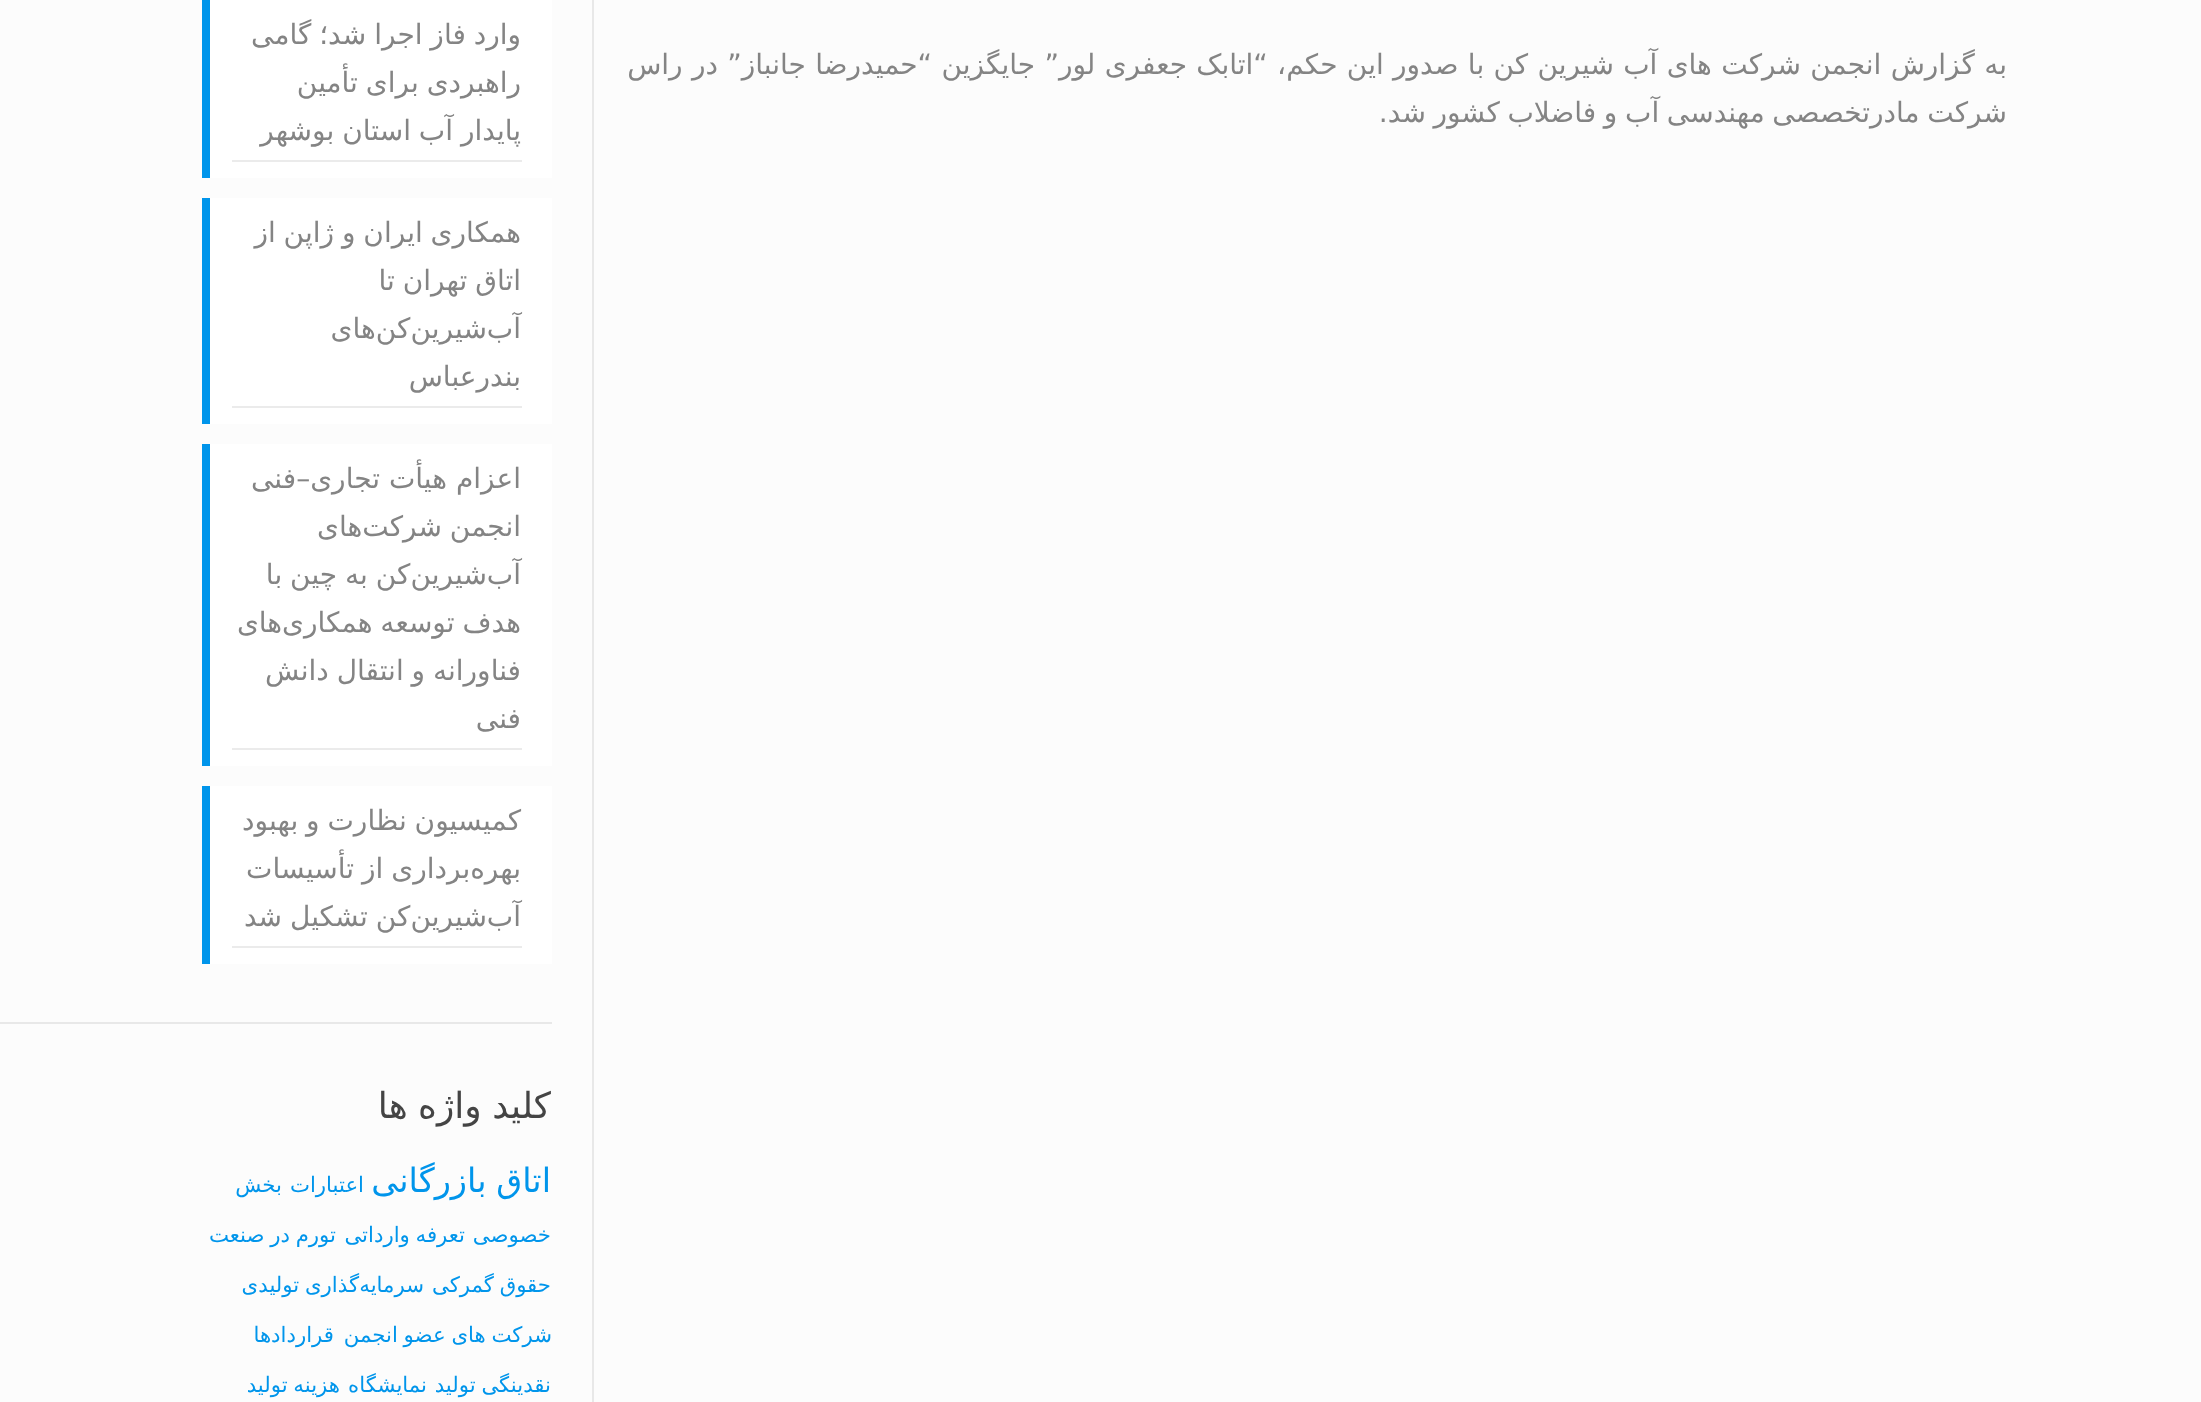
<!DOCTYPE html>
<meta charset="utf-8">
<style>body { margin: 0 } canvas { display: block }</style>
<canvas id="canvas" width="2201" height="1402"></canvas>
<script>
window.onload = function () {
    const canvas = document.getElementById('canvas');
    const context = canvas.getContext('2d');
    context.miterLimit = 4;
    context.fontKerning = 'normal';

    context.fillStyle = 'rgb(252, 252, 252)';
    context.fillRect(0, 0, 2201, 1402);
    context.fillStyle = 'rgb(232, 232, 232)';
    context.fillRect(592, 0, 2, 1402);
    context.fillStyle = 'rgb(255, 255, 255)';
    context.fillRect(210, 0, 342, 178);
    context.fillStyle = 'rgb(235, 235, 235)';
    context.fillRect(232, 160, 290, 2);
    context.fillStyle = 'rgb(0, 149, 235)';
    context.fillRect(202, 0, 8, 178);
    context.fillStyle = 'rgb(255, 255, 255)';
    context.fillRect(210, 198, 342, 226);
    context.fillStyle = 'rgb(235, 235, 235)';
    context.fillRect(232, 406, 290, 2);
    context.fillStyle = 'rgb(0, 149, 235)';
    context.fillRect(202, 198, 8, 226);
    context.fillStyle = 'rgb(255, 255, 255)';
    context.fillRect(210, 444, 342, 322);
    context.fillStyle = 'rgb(235, 235, 235)';
    context.fillRect(232, 748, 290, 2);
    context.fillStyle = 'rgb(0, 149, 235)';
    context.fillRect(202, 444, 8, 322);
    context.fillStyle = 'rgb(255, 255, 255)';
    context.fillRect(210, 786, 342, 178);
    context.fillStyle = 'rgb(235, 235, 235)';
    context.fillRect(232, 946, 290, 2);
    context.fillStyle = 'rgb(0, 149, 235)';
    context.fillRect(202, 786, 8, 178);
    context.fillStyle = 'rgb(232, 232, 232)';
    context.fillRect(0, 1022, 552, 2);
    context.wordSpacing = '0.4px';
    context.direction = 'rtl';
    context.font = '28px DejaVu Sans';
    context.fillStyle = 'rgb(132, 132, 132)';
    context.fillText('به گزارش انجمن شرکت های آب شیرین کن با صدور این حکم، “اتابک جعفری لور” جایگزین “حمیدرضا جانباز” در راس', 2007, 74);
    context.wordSpacing = '-1.25px';
    context.fillText('شرکت مادرتخصصی مهندسی آب و فاضلاب کشور شد.', 2007, 122);
    context.wordSpacing = '-1px';
    context.fillText('وارد فاز اجرا شد؛ گامی', 521, 44);
    context.fillText('راهبردی برای تأمین', 521, 92);
    context.fillText('پایدار آب استان بوشهر', 521, 140);
    context.fillText('همکاری ایران و ژاپن از', 521, 242);
    context.fillText('اتاق تهران تا', 521, 290);
    context.wordSpacing = '0px';
    context.fillText('آب‌شیرین‌کن‌های', 521, 338);
    context.fillText('بندرعباس', 521, 386);
    context.fillText('اعزام هیأت تجاری–فنی', 521, 488);
    context.wordSpacing = '-1px';
    context.fillText('انجمن شرکت‌های', 521, 536);
    context.fillText('آب‌شیرین‌کن به چین با', 521, 584);
    context.fillText('هدف توسعه همکاری‌های', 521, 632);
    context.fillText('فناورانه و انتقال دانش', 521, 680);
    context.wordSpacing = '0px';
    context.fillText('فنی', 521, 728);
    context.wordSpacing = '-1px';
    context.fillText('کمیسیون نظارت و بهبود', 521, 830);
    context.fillText('بهره‌برداری از تأسیسات', 521, 878);
    context.fillText('آب‌شیرین‌کن تشکیل شد', 521, 926);
    context.font = '36px DejaVu Sans';
    context.fillStyle = 'rgb(68, 68, 68)';
    context.fillText('کلید واژه ها', 551, 1118);
    context.font = '33.5px DejaVu Sans';
    context.fillStyle = 'rgb(0, 149, 235)';
    context.fillText('اتاق بازرگانی', 551, 1192);
    context.wordSpacing = '0px';
    context.font = '21.25px DejaVu Sans';
    context.fillText('اعتبارات', 364, 1192);
    context.fillText('بخش', 282, 1192);
    context.fillText('خصوصی', 551, 1242);
    context.wordSpacing = '-1px';
    context.fillText('تعرفه وارداتی', 465, 1242);
    context.fillText('تورم در صنعت', 336, 1242);
    context.fillText('حقوق گمرکی', 551, 1292);
    context.wordSpacing = '0px';
    context.fillText('سرمایه', 424, 1292);
    context.wordSpacing = '-1px';
    context.fillText('گذاری تولیدی', 359, 1292);
    context.fillText('شرکت های عضو انجمن', 552, 1342);
    context.wordSpacing = '0px';
    context.fillText('قراردادها', 334, 1342);
    context.wordSpacing = '-1px';
    context.fillText('نقدینگی تولید', 551, 1392);
    context.wordSpacing = '0px';
    context.fillText('نمایشگاه', 427, 1392);
    context.wordSpacing = '-1px';
    context.fillText('هزینه تولید', 340, 1392);
};
</script>
